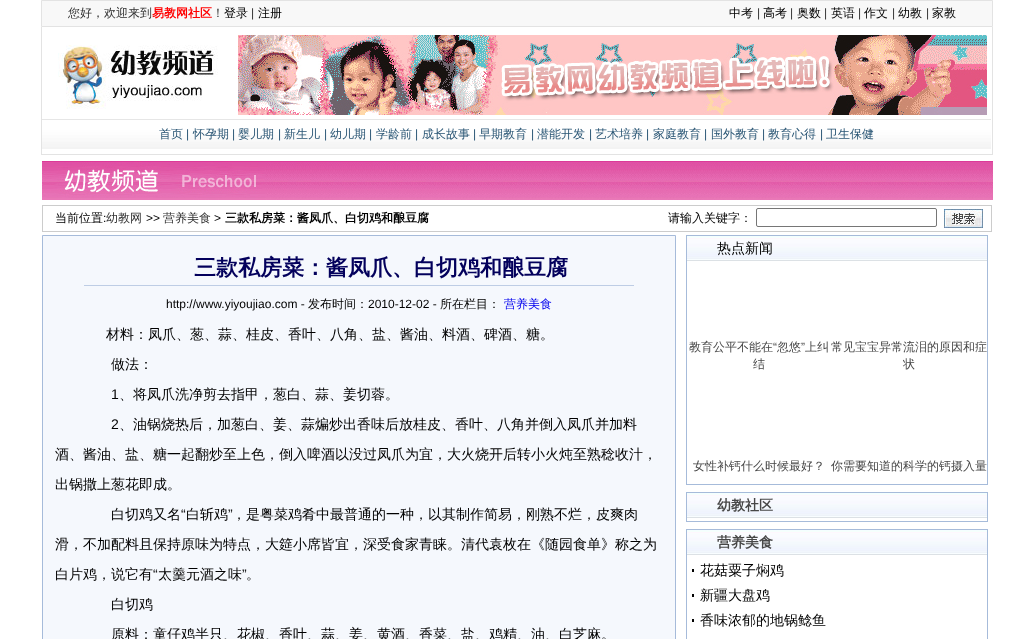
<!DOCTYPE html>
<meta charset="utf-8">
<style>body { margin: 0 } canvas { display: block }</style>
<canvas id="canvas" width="1034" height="639"></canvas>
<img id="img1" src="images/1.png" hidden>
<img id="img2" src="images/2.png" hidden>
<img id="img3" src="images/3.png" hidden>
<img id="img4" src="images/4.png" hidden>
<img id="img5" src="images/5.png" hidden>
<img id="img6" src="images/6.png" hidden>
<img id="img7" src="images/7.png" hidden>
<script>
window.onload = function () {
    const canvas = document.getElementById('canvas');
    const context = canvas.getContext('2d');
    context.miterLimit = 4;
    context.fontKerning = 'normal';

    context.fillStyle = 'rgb(255, 255, 255)';
    context.fillRect(0, 0, 1034, 639);
    context.fillStyle = 'rgb(248, 248, 248)';
    context.beginPath();
    context.rect(41.5, 0.5, 951, 26);
    context.fill();
    context.strokeStyle = 'rgb(227, 227, 227)';
    context.stroke();
    context.fillStyle = 'rgb(227, 227, 227)';
    context.fillRect(992, 27, 1, 128);
    context.fillRect(41, 154, 952, 1);
    context.fillRect(41, 27, 1, 128);
    context.drawImage(document.getElementById('img1'), 58, 45, 160, 64);
    context.drawImage(document.getElementById('img2'), 238, 35, 749, 80);
    context.drawImage(document.getElementById('img3'), 42, 119, 949, 30);
    context.drawImage(document.getElementById('img4'), 42, 161, 223, 39);
    context.drawImage(document.getElementById('img5'), 265, 161, 728, 39);
    context.strokeStyle = 'rgb(204, 204, 204)';
    context.strokeRect(42.5, 205.5, 949, 26);
    context.beginPath();
    context.roundRect(756.5, 208.5, 180, 18, 1.5);
    context.strokeStyle = 'rgb(118, 118, 118)';
    context.stroke();
    context.drawImage(document.getElementById('img6'), 944, 209, 39, 19);
    context.fillStyle = 'rgb(245, 248, 253)';
    context.beginPath();
    context.rect(42.5, 235.5, 633, 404);
    context.fill();
    context.strokeStyle = 'rgb(166, 187, 218)';
    context.stroke();
    context.fillStyle = 'rgb(190, 205, 229)';
    context.fillRect(84, 285, 550, 1);
    context.strokeRect(686.5, 235.5, 301, 249);
    context.drawImage(document.getElementById('img7'), 687, 236, 300, 25);
    context.strokeRect(686.5, 492.5, 301, 29);
    context.drawImage(document.getElementById('img7'), 687, 493, 300, 25);
    context.strokeRect(686.5, 529.5, 301, 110);
    context.drawImage(document.getElementById('img7'), 687, 530, 300, 25);
    context.fillStyle = 'rgb(3, 3, 3)';
    context.fillRect(692, 569, 2, 3);
    context.fillRect(692, 594, 2, 3);
    context.fillRect(692, 619, 2, 3);
    context.font = '500 12px WenQuanYi Zen Hei';
    context.fillStyle = 'rgb(50, 50, 50)';
    context.fillText('您好，欢迎来到', 68, 17);
    context.font = 'bold 12px WenQuanYi Zen Hei';
    context.fillStyle = 'rgb(255, 0, 0)';
    context.fillText('易教网社区', 152, 17);
    context.font = '500 12px WenQuanYi Zen Hei';
    context.fillStyle = 'rgb(50, 50, 50)';
    context.fillText('！', 212, 17);
    context.fillStyle = 'rgb(0, 0, 0)';
    context.fillText('登录', 224, 17);
    context.font = '12px Liberation Sans';
    context.fillStyle = 'rgb(50, 50, 50)';
    context.fillText('|', 251, 17);
    context.font = '500 12px WenQuanYi Zen Hei';
    context.fillStyle = 'rgb(0, 0, 0)';
    context.fillText('注册', 258, 17);
    context.fillText('中考', 729, 17);
    context.font = '12px Liberation Sans';
    context.fillStyle = 'rgb(50, 50, 50)';
    context.fillText('|', 757, 17);
    context.font = '500 12px WenQuanYi Zen Hei';
    context.fillStyle = 'rgb(0, 0, 0)';
    context.fillText('高考', 763, 17);
    context.font = '12px Liberation Sans';
    context.fillStyle = 'rgb(50, 50, 50)';
    context.fillText('|', 790, 17);
    context.font = '500 12px WenQuanYi Zen Hei';
    context.fillStyle = 'rgb(0, 0, 0)';
    context.fillText('奥数', 797, 17);
    context.font = '12px Liberation Sans';
    context.fillStyle = 'rgb(50, 50, 50)';
    context.fillText('|', 824, 17);
    context.font = '500 12px WenQuanYi Zen Hei';
    context.fillStyle = 'rgb(0, 0, 0)';
    context.fillText('英语', 831, 17);
    context.font = '12px Liberation Sans';
    context.fillStyle = 'rgb(50, 50, 50)';
    context.fillText('|', 858, 17);
    context.font = '500 12px WenQuanYi Zen Hei';
    context.fillStyle = 'rgb(0, 0, 0)';
    context.fillText('作文', 864, 17);
    context.font = '12px Liberation Sans';
    context.fillStyle = 'rgb(50, 50, 50)';
    context.fillText('|', 892, 17);
    context.font = '500 12px WenQuanYi Zen Hei';
    context.fillStyle = 'rgb(0, 0, 0)';
    context.fillText('幼教', 898, 17);
    context.font = '12px Liberation Sans';
    context.fillStyle = 'rgb(50, 50, 50)';
    context.fillText('|', 926, 17);
    context.font = '500 12px WenQuanYi Zen Hei';
    context.fillStyle = 'rgb(0, 0, 0)';
    context.fillText('家教', 932, 17);
    context.fillStyle = 'rgb(41, 85, 116)';
    context.fillText('首页', 159, 138);
    context.font = '12px Liberation Sans';
    context.fillText('|', 186, 138);
    context.font = '500 12px WenQuanYi Zen Hei';
    context.fillText('怀孕期', 193, 138);
    context.font = '12px Liberation Sans';
    context.fillText('|', 232, 138);
    context.font = '500 12px WenQuanYi Zen Hei';
    context.fillText('婴儿期', 238, 138);
    context.font = '12px Liberation Sans';
    context.fillText('|', 278, 138);
    context.font = '500 12px WenQuanYi Zen Hei';
    context.fillText('新生儿', 284, 138);
    context.font = '12px Liberation Sans';
    context.fillText('|', 324, 138);
    context.font = '500 12px WenQuanYi Zen Hei';
    context.fillText('幼儿期', 330, 138);
    context.font = '12px Liberation Sans';
    context.fillText('|', 369, 138);
    context.font = '500 12px WenQuanYi Zen Hei';
    context.fillText('学龄前', 376, 138);
    context.font = '12px Liberation Sans';
    context.fillText('|', 415, 138);
    context.font = '500 12px WenQuanYi Zen Hei';
    context.fillText('成长故事', 422, 138);
    context.font = '12px Liberation Sans';
    context.fillText('|', 473, 138);
    context.font = '500 12px WenQuanYi Zen Hei';
    context.fillText('早期教育', 479, 138);
    context.font = '12px Liberation Sans';
    context.fillText('|', 531, 138);
    context.font = '500 12px WenQuanYi Zen Hei';
    context.fillText('潜能开发', 537, 138);
    context.font = '12px Liberation Sans';
    context.fillText('|', 589, 138);
    context.font = '500 12px WenQuanYi Zen Hei';
    context.fillText('艺术培养', 595, 138);
    context.font = '12px Liberation Sans';
    context.fillText('|', 646, 138);
    context.font = '500 12px WenQuanYi Zen Hei';
    context.fillText('家庭教育', 653, 138);
    context.font = '12px Liberation Sans';
    context.fillText('|', 704, 138);
    context.font = '500 12px WenQuanYi Zen Hei';
    context.fillText('国外教育', 711, 138);
    context.font = '12px Liberation Sans';
    context.fillText('|', 762, 138);
    context.font = '500 12px WenQuanYi Zen Hei';
    context.fillText('教育心得', 768, 138);
    context.font = '12px Liberation Sans';
    context.fillText('|', 820, 138);
    context.font = '500 12px WenQuanYi Zen Hei';
    context.fillText('卫生保健', 826, 138);
    context.fillStyle = 'rgb(0, 0, 0)';
    context.fillText('当前位置', 55, 222);
    context.font = '12px Liberation Sans';
    context.fillText(':', 103, 222);
    context.font = '500 12px WenQuanYi Zen Hei';
    context.fillStyle = 'rgb(50, 50, 50)';
    context.fillText('幼教网', 106, 222);
    context.font = '12px Liberation Sans';
    context.fillStyle = 'rgb(0, 0, 0)';
    context.fillText('>>', 146, 222);
    context.font = '500 12px WenQuanYi Zen Hei';
    context.fillStyle = 'rgb(50, 50, 50)';
    context.fillText('营养美食', 163, 222);
    context.font = '12px Liberation Sans';
    context.fillStyle = 'rgb(0, 0, 0)';
    context.fillText('>', 214, 222);
    context.font = 'bold 12px WenQuanYi Zen Hei';
    context.fillText('三款私房菜：酱凤爪、白切鸡和酿豆腐', 225, 222);
    context.font = '500 12px WenQuanYi Zen Hei';
    context.fillText('请输入关键字：', 668, 222);
    context.font = 'bold 22px WenQuanYi Zen Hei';
    context.fillStyle = 'rgb(3, 0, 92)';
    context.fillText('三款私房菜：酱凤爪、白切鸡和酿豆腐', 194, 275);
    context.font = '12px Liberation Sans';
    context.fillStyle = 'rgb(0, 0, 0)';
    context.fillText('http://www.yiyoujiao.com -', 166, 308);
    context.font = '500 12px WenQuanYi Zen Hei';
    context.fillText('发布时间：', 308, 308);
    context.font = '12px Liberation Sans';
    context.fillText('2010-12-02 -', 368, 308);
    context.font = '500 12px WenQuanYi Zen Hei';
    context.fillText('所在栏目：', 440, 308);
    context.fillStyle = 'rgb(0, 0, 238)';
    context.fillText('营养美食', 504, 308);
    context.font = '500 14px WenQuanYi Zen Hei';
    context.fillStyle = 'rgb(0, 0, 0)';
    context.fillText('材料：凤爪、葱、蒜、桂皮、香叶、八角、盐、酱油、料酒、碑酒、糖。', 106, 339);
    context.fillText('做法：', 111, 369);
    context.font = '14px Liberation Sans';
    context.fillText('1', 111, 399);
    context.font = '500 14px WenQuanYi Zen Hei';
    context.fillText('、将凤爪洗净剪去指甲，葱白、蒜、姜切蓉。', 119, 399);
    context.font = '14px Liberation Sans';
    context.fillText('2', 111, 429);
    context.font = '500 14px WenQuanYi Zen Hei';
    context.fillText('、油锅烧热后，加葱白、姜、蒜煸炒出香味后放桂皮、香叶、八角并倒入凤爪并加料', 119, 429);
    context.fillText('酒、酱油、盐、糖一起翻炒至上色，倒入啤酒以没过凤爪为宜，大火烧开后转小火炖至熟稔收汁，', 55, 459);
    context.fillText('出锅撒上葱花即成。', 55, 489);
    context.fillText('白切鸡又名', 111, 519);
    context.font = '14px Liberation Sans';
    context.fillText('“', 181, 519);
    context.font = '500 14px WenQuanYi Zen Hei';
    context.fillText('白斩鸡', 186, 519);
    context.font = '14px Liberation Sans';
    context.fillText('”', 228, 519);
    context.font = '500 14px WenQuanYi Zen Hei';
    context.fillText('，是粤菜鸡肴中最普通的一种，以其制作简易，刚熟不烂，皮爽肉', 232, 519);
    context.fillText('滑，不加配料且保持原味为特点，大筵小席皆宜，深受食家青睐。清代袁枚在《随园食单》称之为', 55, 549);
    context.fillText('白片鸡，说它有', 55, 579);
    context.font = '14px Liberation Sans';
    context.fillText('“', 153, 579);
    context.font = '500 14px WenQuanYi Zen Hei';
    context.fillText('太羹元酒之味', 158, 579);
    context.font = '14px Liberation Sans';
    context.fillText('”', 242, 579);
    context.font = '500 14px WenQuanYi Zen Hei';
    context.fillText('。', 246, 579);
    context.fillText('白切鸡', 111, 609);
    context.fillText('原料：童仔鸡半只、花椒、香叶、蒜、姜、黄酒、香菜、盐、鸡精、油、白芝麻。', 111, 639);
    context.fillText('热点新闻', 717, 253);
    context.font = '500 12px WenQuanYi Zen Hei';
    context.fillStyle = 'rgb(71, 71, 71)';
    context.fillText('教育公平不能在', 689, 351);
    context.font = '12px Liberation Sans';
    context.fillText('“', 773, 351);
    context.font = '500 12px WenQuanYi Zen Hei';
    context.fillText('忽悠', 777, 351);
    context.font = '12px Liberation Sans';
    context.fillText('”', 801, 351);
    context.font = '500 12px WenQuanYi Zen Hei';
    context.fillText('上纠', 805, 351);
    context.fillText('结', 753, 368);
    context.fillText('常见宝宝异常流泪的原因和症', 831, 351);
    context.fillText('状', 903, 368);
    context.fillText('女性补钙什么时候最好？', 693, 470);
    context.fillText('你需要知道的科学的钙摄入量', 831, 470);
    context.font = 'bold 14px WenQuanYi Zen Hei';
    context.fillText('幼教社区', 717, 510);
    context.fillText('营养美食', 717, 547);
    context.font = '500 14px WenQuanYi Zen Hei';
    context.fillStyle = 'rgb(0, 0, 0)';
    context.fillText('花菇粟子焖鸡', 700, 575);
    context.fillText('新疆大盘鸡', 700, 600);
    context.fillText('香味浓郁的地锅鲶鱼', 700, 625);
};
</script>
